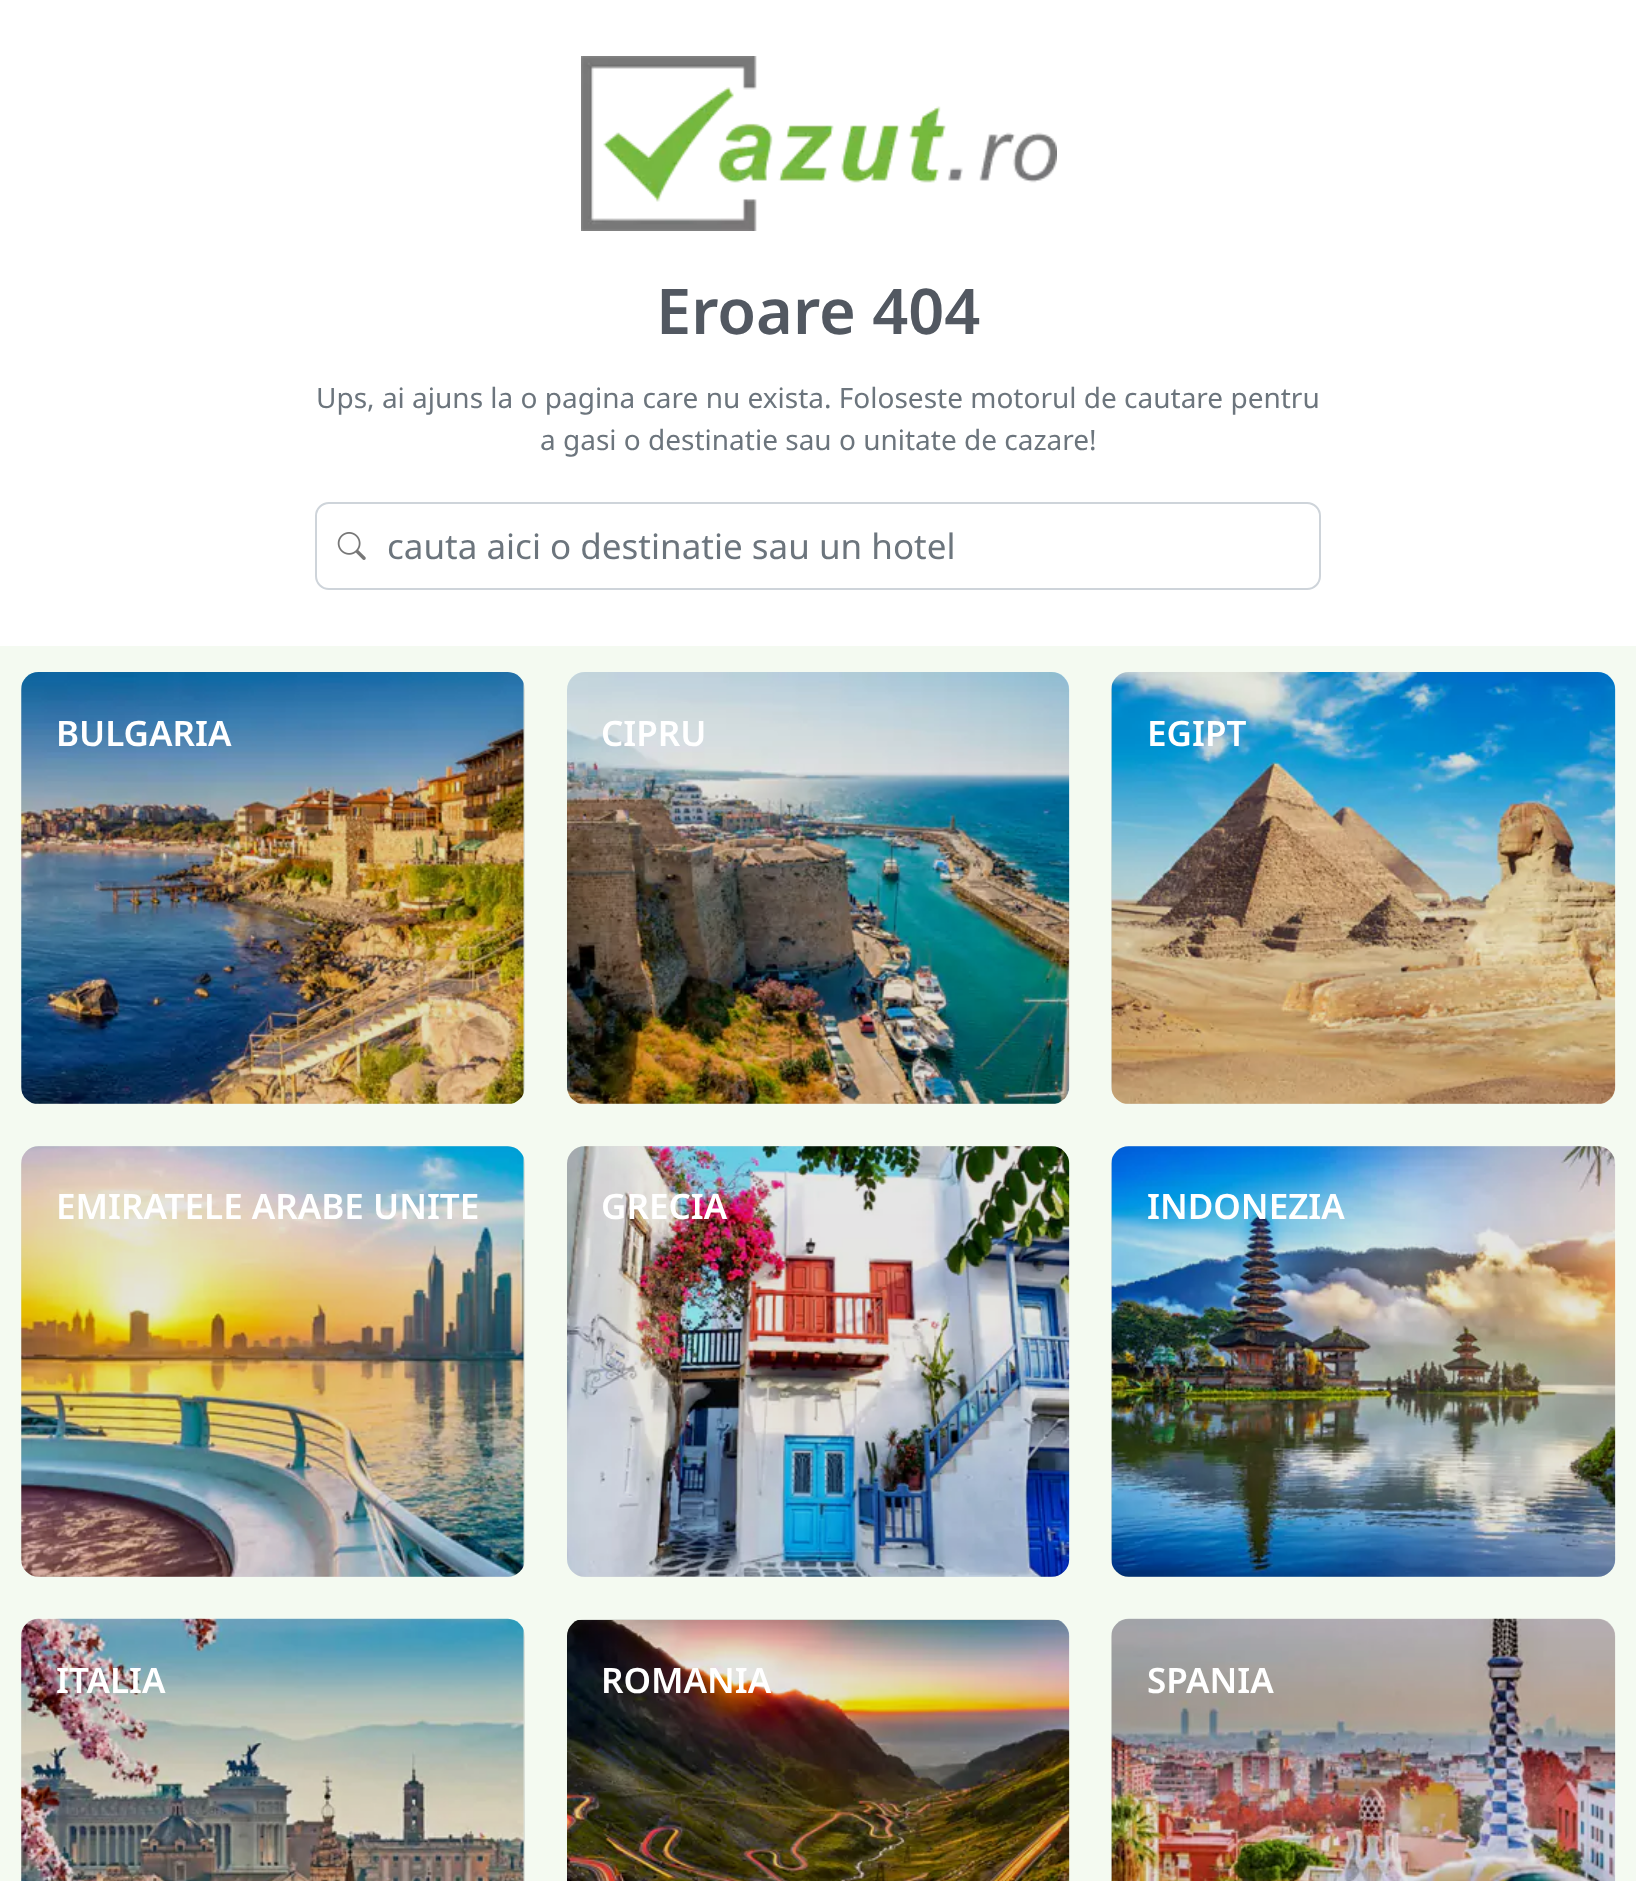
<!DOCTYPE html>
<meta charset="utf-8">
<style>body { margin: 0 } canvas { display: block }</style>
<canvas id="canvas" width="1636" height="1881"></canvas>
<img id="img1" src="images/1.png" hidden>
<img id="img2" src="images/2.png" hidden>
<img id="img3" src="images/3.png" hidden>
<img id="img4" src="images/4.png" hidden>
<img id="img5" src="images/5.png" hidden>
<img id="img6" src="images/6.png" hidden>
<img id="img7" src="images/7.png" hidden>
<img id="img8" src="images/8.png" hidden>
<img id="img9" src="images/9.png" hidden>
<img id="img10" src="images/10.png" hidden>
<img id="img11" src="images/11.png" hidden>
<script>
window.onload = function () {
    const canvas = document.getElementById('canvas');
    const context = canvas.getContext('2d');
    context.miterLimit = 4;
    context.fontKerning = 'normal';

    context.fillStyle = 'rgb(255, 255, 255)';
    context.fillRect(0, 0, 1636, 1881);
    context.drawImage(document.getElementById('img1'), 581, 56, 476, 175);
    context.beginPath();
    context.roundRect(316, 503, 1004, 86, 13);
    context.strokeStyle = 'rgb(206, 212, 218)';
    context.lineWidth = 2;
    context.stroke();
    context.drawImage(document.getElementById('img2'), 337, 532, 29, 28);
    context.fillStyle = 'rgb(244, 250, 241)';
    context.fillRect(0, 646, 1636, 1235);
    context.drawImage(document.getElementById('img3'), 21, 672, 503, 432);
    context.fillStyle = 'rgba(0, 0, 0, 0.1)';
    context.beginPath();
    context.roundRect(21, 672, 504, 432, 18);
    context.fill();
    context.drawImage(document.getElementById('img4'), 567, 672, 503, 432);
    context.beginPath();
    context.roundRect(567, 672, 502, 432, 18);
    context.fill();
    context.drawImage(document.getElementById('img5'), 1111, 672, 505, 432);
    context.beginPath();
    context.roundRect(1111, 672, 504, 432, 18);
    context.fill();
    context.drawImage(document.getElementById('img6'), 21, 1146, 503, 431);
    context.beginPath();
    context.roundRect(21, 1146, 504, 431, 18);
    context.fill();
    context.drawImage(document.getElementById('img7'), 567, 1146, 503, 431);
    context.beginPath();
    context.roundRect(567, 1146, 502, 431, 18);
    context.fill();
    context.drawImage(document.getElementById('img8'), 1111, 1146, 505, 431);
    context.beginPath();
    context.roundRect(1111, 1146, 504, 431, 18);
    context.fill();
    context.drawImage(document.getElementById('img9'), 21, 1618, 503, 263);
    context.beginPath();
    context.roundRect(21, 1619, 504, 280, 18);
    context.fill();
    context.drawImage(document.getElementById('img10'), 567, 1620, 503, 261);
    context.beginPath();
    context.roundRect(567, 1619, 502, 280, 18);
    context.fill();
    context.drawImage(document.getElementById('img11'), 1111, 1618, 505, 263);
    context.beginPath();
    context.roundRect(1111, 1619, 504, 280, 18);
    context.fill();
    context.font = '600 63px Noto Sans';
    context.fillStyle = 'rgb(82, 88, 97)';
    context.fillText('Eroare 404', 656, 334);
    context.font = '28px Noto Sans';
    context.fillStyle = 'rgb(108, 117, 125)';
    context.fillText('Ups, ai ajuns la o pagina care nu exista. Foloseste motorul de cautare pentru', 316, 408);
    context.fillText('a gasi o destinatie sau o unitate de cazare!', 540, 450);
    context.font = '35px Noto Sans';
    context.fillText('cauta aici o destinatie sau un hotel', 387, 559);
    context.font = '600 35px Noto Sans';
    context.fillStyle = 'rgb(255, 255, 255)';
    context.fillText('BULGARIA', 56, 746);
    context.fillText('CIPRU', 601, 746);
    context.fillText('EGIPT', 1147, 746);
    context.fillText('EMIRATELE ARABE UNITE', 56, 1219);
    context.fillText('GRECIA', 601, 1219);
    context.fillText('INDONEZIA', 1147, 1219);
    context.fillText('ITALIA', 56, 1693);
    context.fillText('ROMANIA', 601, 1693);
    context.fillText('SPANIA', 1147, 1693);
};
</script>
